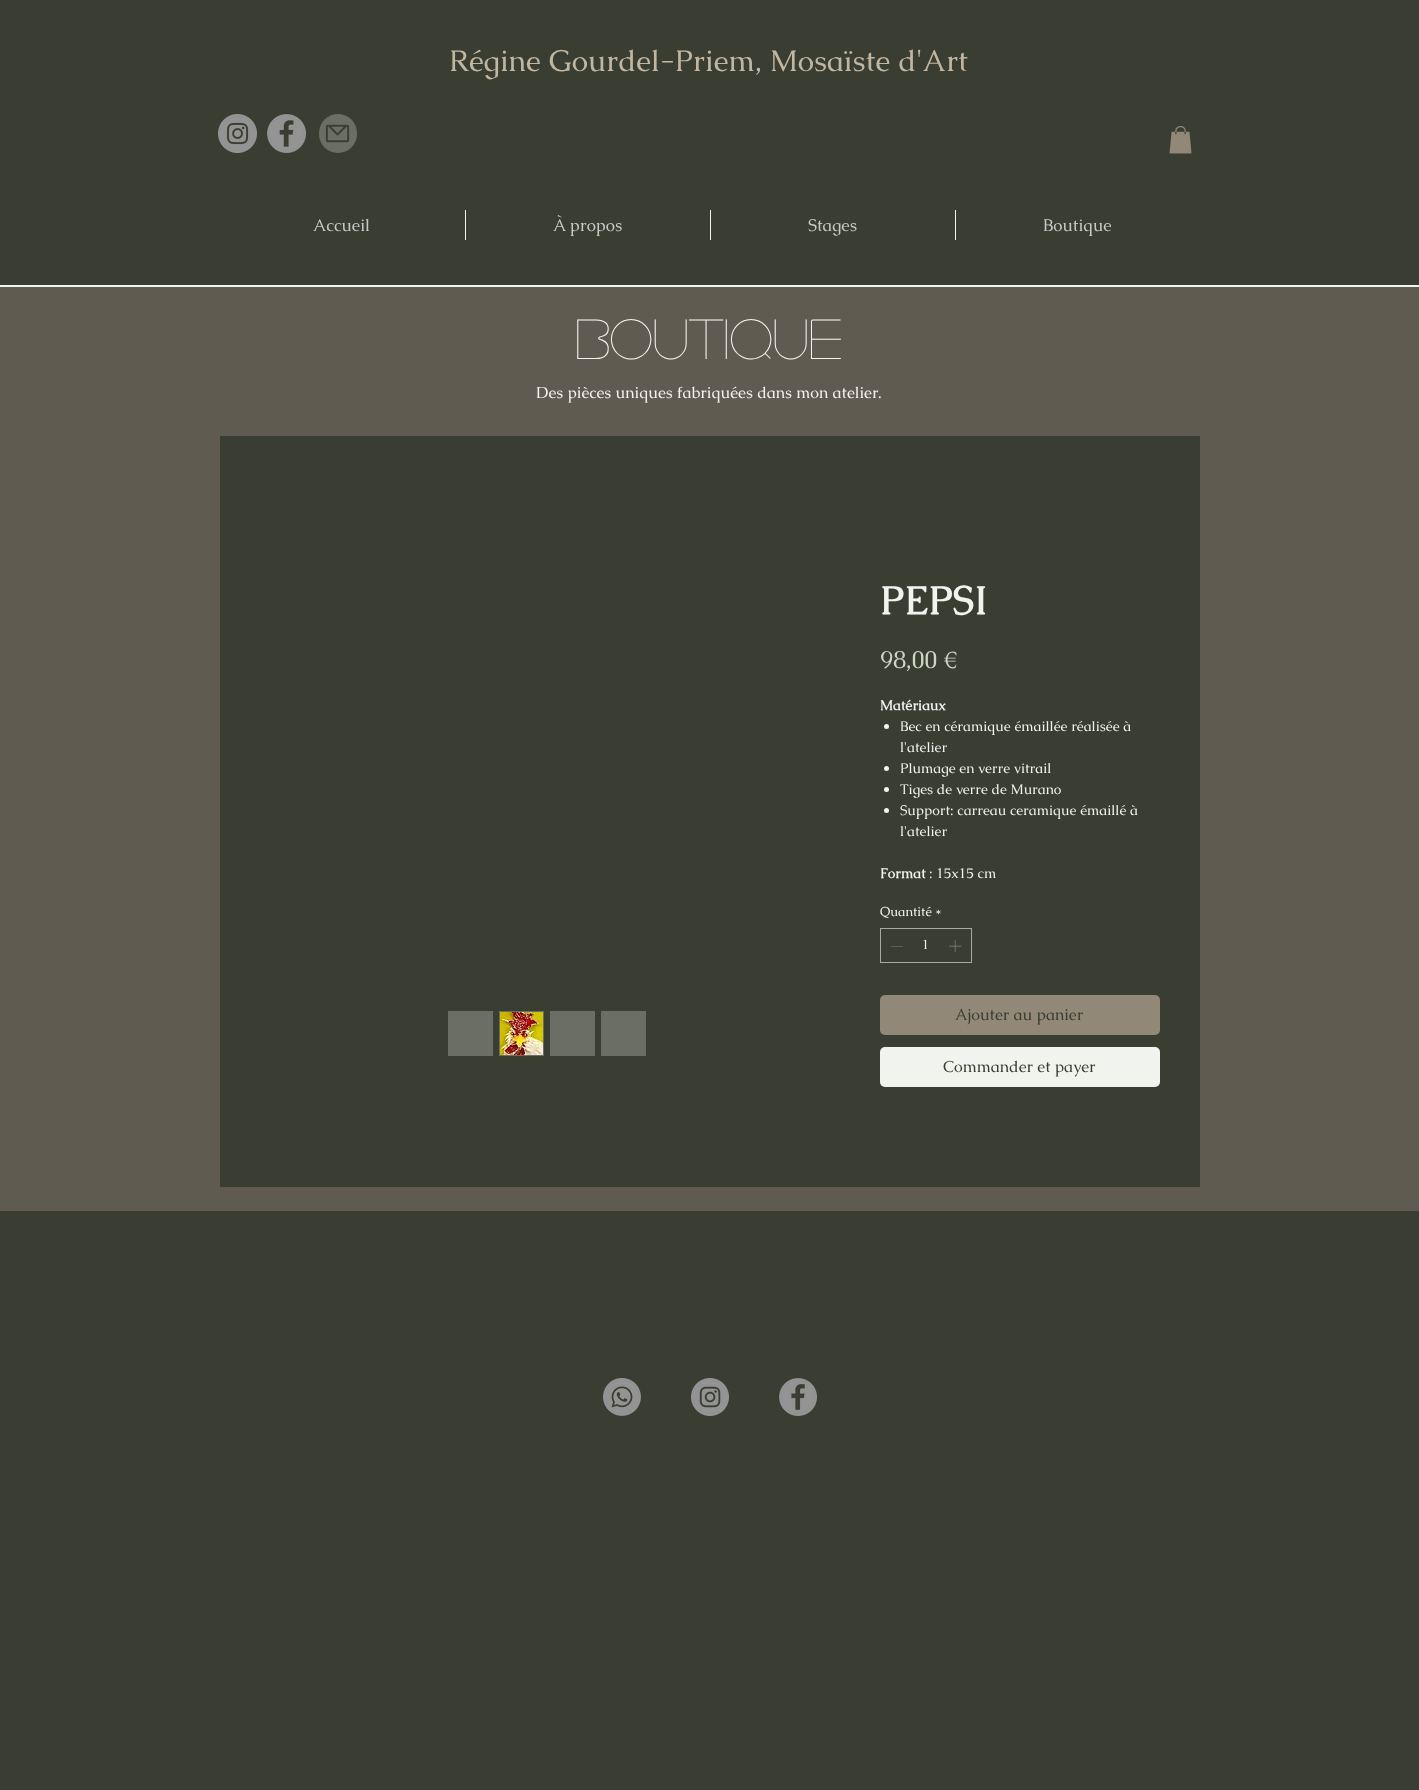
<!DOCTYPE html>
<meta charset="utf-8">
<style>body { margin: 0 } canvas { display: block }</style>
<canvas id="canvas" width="1419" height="1790"></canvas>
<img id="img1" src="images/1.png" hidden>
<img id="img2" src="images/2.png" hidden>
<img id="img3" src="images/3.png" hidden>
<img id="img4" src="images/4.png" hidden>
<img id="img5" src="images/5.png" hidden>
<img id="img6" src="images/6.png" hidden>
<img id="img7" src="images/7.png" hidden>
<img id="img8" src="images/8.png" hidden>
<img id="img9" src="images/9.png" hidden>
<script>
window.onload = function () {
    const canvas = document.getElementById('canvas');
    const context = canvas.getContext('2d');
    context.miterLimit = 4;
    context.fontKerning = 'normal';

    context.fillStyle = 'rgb(57, 61, 50)';
    context.fillRect(0, 0, 1419, 1790);
    context.drawImage(document.getElementById('img1'), 218, 114, 39, 39);
    context.drawImage(document.getElementById('img2'), 267, 114, 39, 39);
    context.fillStyle = 'rgb(106, 110, 100)';
    context.beginPath();
    context.roundRect(319, 114, 38, 39, 19);
    context.fill();
    context.drawImage(document.getElementById('img3'), 325, 124, 25, 19);
    context.drawImage(document.getElementById('img4'), 1169, 126, 23, 28);
    context.fillStyle = 'rgb(241, 243, 238)';
    context.fillRect(465, 210, 1, 30);
    context.fillRect(710, 210, 1, 30);
    context.fillRect(955, 210, 1, 30);
    context.fillRect(0, 285, 1419, 2);
    context.fillStyle = 'rgb(96, 91, 80)';
    context.fillRect(0, 287, 1419, 924);
    context.fillStyle = 'rgb(57, 61, 50)';
    context.fillRect(220, 436, 980, 751);
    context.fillStyle = 'rgb(106, 110, 100)';
    context.fillRect(448, 1011, 45, 45);
    context.fillRect(499, 1011, 45, 45);
    context.drawImage(document.getElementById('img5'), 500, 1012, 43, 43);
    context.fillRect(550, 1011, 45, 45);
    context.fillRect(601, 1011, 45, 45);
    context.fillStyle = 'rgb(241, 243, 238)';
    context.beginPath();
    context.arc(886.5, 726.5, 2.5, 0, 2 * Math.PI);
    context.fill();
    context.beginPath();
    context.arc(886.5, 768.5, 2.5, 0, 2 * Math.PI);
    context.fill();
    context.beginPath();
    context.arc(886.5, 789.5, 2.5, 0, 2 * Math.PI);
    context.fill();
    context.beginPath();
    context.arc(886.5, 810.5, 2.5, 0, 2 * Math.PI);
    context.fill();
    context.strokeStyle = 'rgb(167, 170, 163)';
    context.strokeRect(880.5, 928.5, 91, 34);
    context.fillStyle = 'rgb(128, 130, 125)';
    context.beginPath();
    context.moveTo(903, 946);
    context.lineTo(903, 946.5);
    context.lineTo(891, 946.5);
    context.lineTo(891, 946);
    context.closePath();
    context.fill('evenodd');
    context.drawImage(document.getElementById('img6'), 949, 940, 13, 13);
    context.fillStyle = 'rgb(145, 136, 120)';
    context.beginPath();
    context.roundRect(880, 995, 280, 40, 5);
    context.fill();
    context.fillStyle = 'rgb(241, 243, 238)';
    context.beginPath();
    context.roundRect(880, 1047, 280, 40, 5);
    context.fill();
    context.drawImage(document.getElementById('img7'), 603, 1378, 38, 38);
    context.drawImage(document.getElementById('img8'), 691, 1378, 38, 38);
    context.drawImage(document.getElementById('img9'), 779, 1378, 38, 38);
    context.font = '30px Caudex';
    context.fillStyle = 'rgb(193, 182, 160)';
    context.fillText('Régine Gourdel-Priem, Mosaïste d\'Art', 449, 71);
    context.font = '17px Caudex';
    context.fillStyle = 'rgb(200, 201, 197)';
    context.fillText('Accueil', 313, 231);
    context.fillText('À propos', 553, 231);
    context.fillText('Stages', 808, 231);
    context.fillText('Boutique', 1043, 231);
    context.font = '56px "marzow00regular"';
    context.fillStyle = 'rgb(241, 243, 238)';
    context.fillText('Boutique', 575, 359);
    context.font = '16px Caudex';
    context.fillText('Des pièces uniques fabriquées dans mon atelier.', 536, 398);
    context.font = 'bold 40px Caudex';
    context.fillText('PEPSI', 880, 614);
    context.font = '24px Caudex';
    context.fillStyle = 'rgb(206, 214, 195)';
    context.fillText('98,00 €', 880, 668);
    context.font = 'bold 14px Caudex';
    context.fillStyle = 'rgb(241, 243, 238)';
    context.fillText('Matériaux', 880, 710);
    context.font = '14px Caudex';
    context.fillText('Bec en céramique émaillée réalisée à', 900, 731);
    context.fillText('l\'atelier', 900, 752);
    context.fillText('Plumage en verre vitrail', 900, 773);
    context.fillText('Tiges de verre de Murano', 900, 794);
    context.fillText('Support: carreau ceramique émaillé à', 900, 815);
    context.fillText('l\'atelier', 900, 836);
    context.font = 'bold 14px Caudex';
    context.fillText('Format', 880, 878);
    context.font = '14px Caudex';
    context.fillText(': 15x15 cm', 929, 878);
    context.font = '13px Caudex';
    context.fillText('Quantité', 880, 916);
    context.fillText('*', 935, 916);
    context.fillText('1', 922, 949);
    context.font = '16px Caudex';
    context.fillStyle = 'rgb(57, 61, 50)';
    context.fillText('Ajouter au panier', 955, 1020);
    context.fillText('Commander et payer', 943, 1072);
};
</script>
